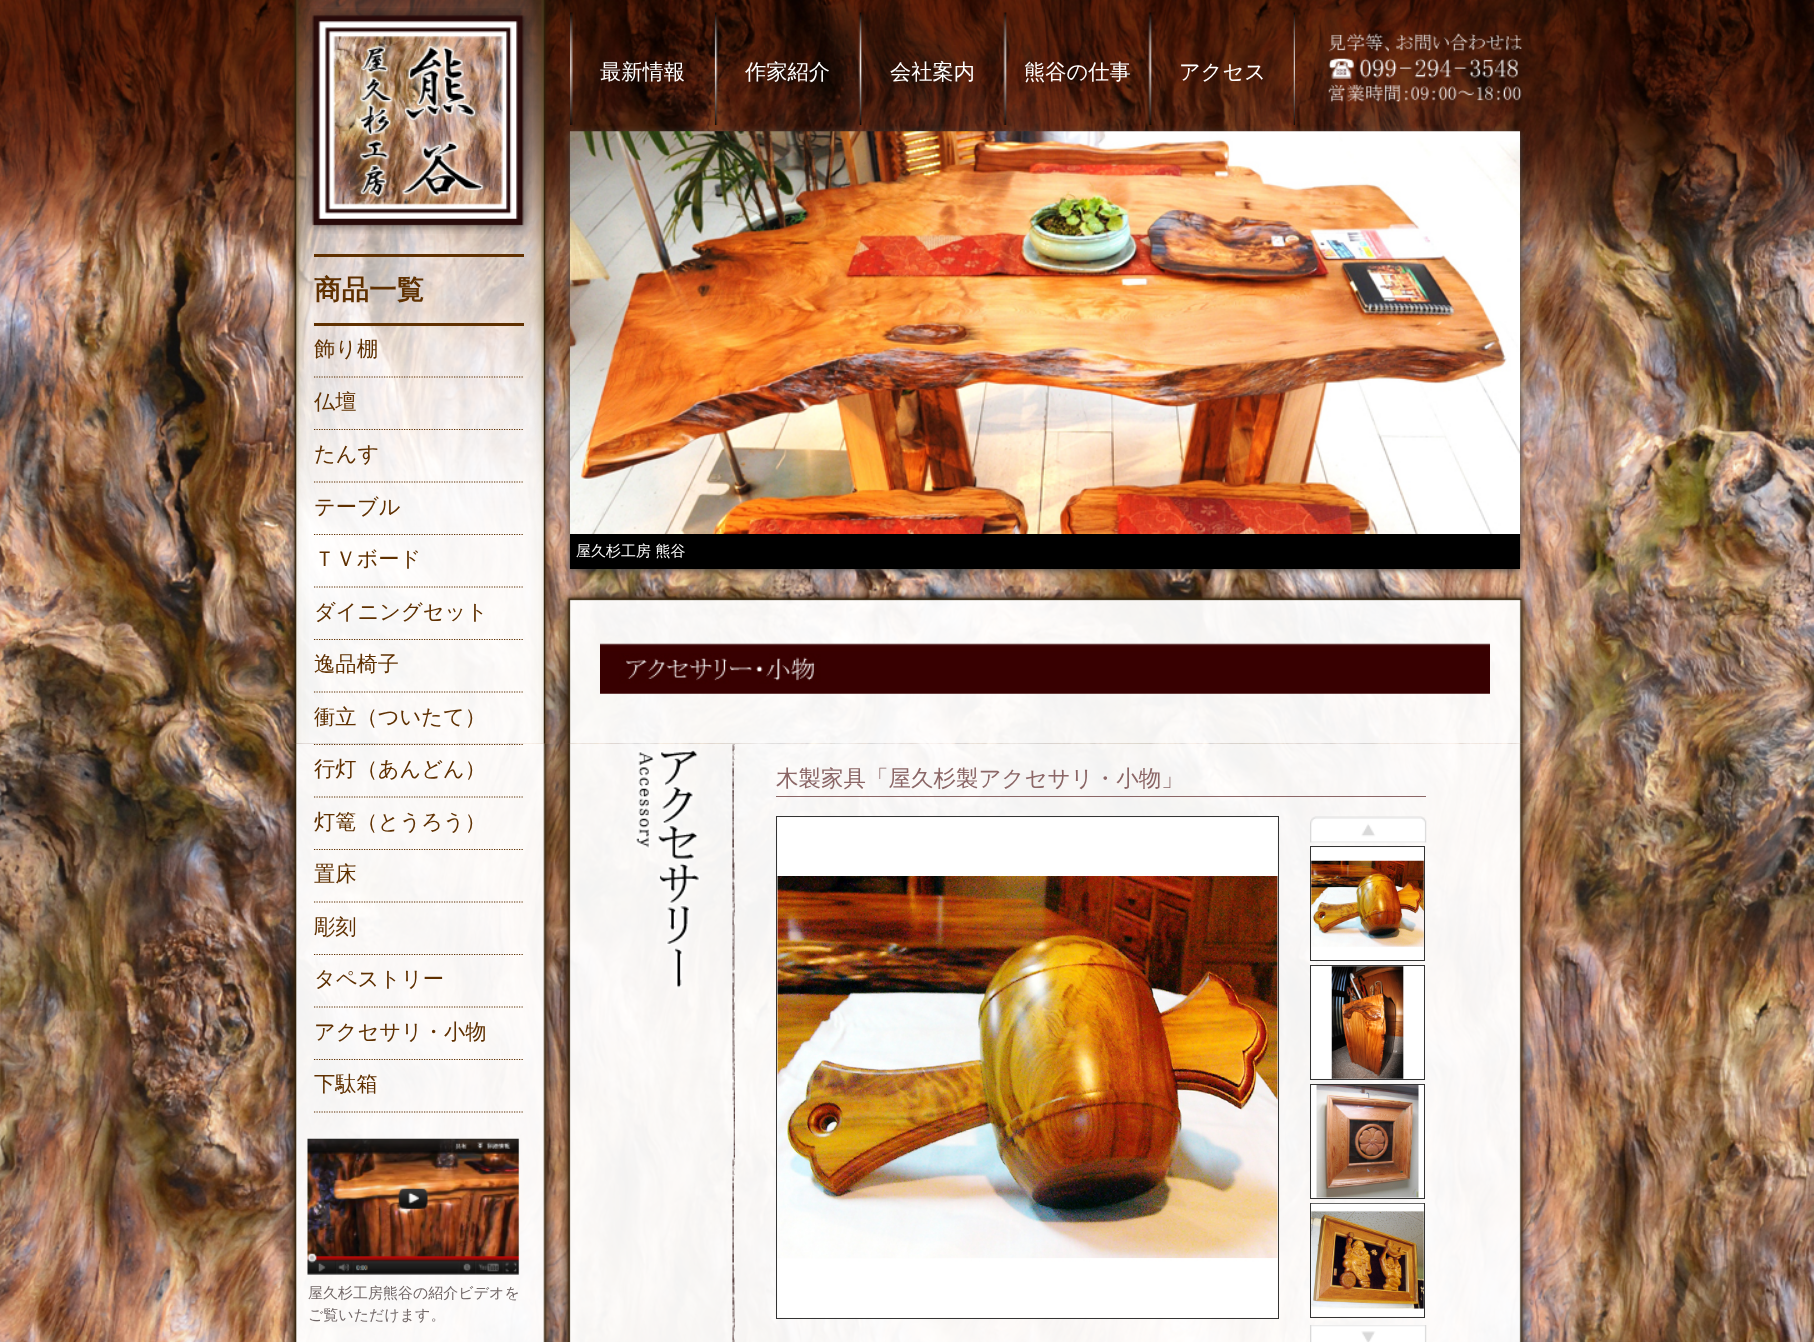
<!DOCTYPE html>
<meta charset="utf-8">
<style>body { margin: 0 } canvas { display: block }</style>
<canvas id="canvas" width="1814" height="1342"></canvas>
<img id="img1" src="images/1.png" hidden>
<img id="img2" src="images/2.png" hidden>
<img id="img3" src="images/3.png" hidden>
<img id="img4" src="images/4.png" hidden>
<img id="img5" src="images/5.png" hidden>
<img id="img6" src="images/9.png" hidden>
<img id="img7" src="images/6.png" hidden>
<img id="img8" src="images/7.png" hidden>
<img id="img9" src="images/8.png" hidden>
<img id="img10" src="images/10.png" hidden>
<img id="img11" src="images/11.png" hidden>
<img id="img12" src="images/12.png" hidden>
<img id="img13" src="images/13.png" hidden>
<img id="img14" src="images/14.png" hidden>
<img id="img15" src="images/15.png" hidden>
<img id="img16" src="images/16.png" hidden>
<img id="img17" src="images/17.png" hidden>
<img id="img18" src="images/18.png" hidden>
<script>
window.onload = function () {
    const canvas = document.getElementById('canvas');
    const context = canvas.getContext('2d');
    context.miterLimit = 4;
    context.fontKerning = 'normal';

    context.fillStyle = 'rgb(255, 255, 255)';
    context.fillRect(0, 0, 1814, 1342);
    context.drawImage(document.getElementById('img1'), 0, 0, 1814, 1342);
    context.drawImage(document.getElementById('img2'), 283, 0, 1250, 744);
    context.drawImage(document.getElementById('img3'), 570, 12, 725, 113);
    context.drawImage(document.getElementById('img4'), 1328, 33, 194, 69);
    context.drawImage(document.getElementById('img5'), 305, 8, 227, 226);
    context.fillStyle = 'rgb(95, 48, 0)';
    context.fillRect(314, 254, 210, 3);
    context.fillRect(314, 323, 210, 3);
    context.beginPath();
    context.moveTo(314, 377);
    context.lineTo(524, 377);
    context.strokeStyle = 'rgb(95, 48, 0)';
    context.lineWidth = 1.2;
    context.setLineDash([1.25, 1.25]);
    context.stroke();
    context.beginPath();
    context.moveTo(314, 429.5);
    context.lineTo(524, 429.5);
    context.stroke();
    context.beginPath();
    context.moveTo(314, 482);
    context.lineTo(524, 482);
    context.stroke();
    context.beginPath();
    context.moveTo(314, 534.5);
    context.lineTo(524, 534.5);
    context.stroke();
    context.beginPath();
    context.moveTo(314, 587);
    context.lineTo(524, 587);
    context.stroke();
    context.beginPath();
    context.moveTo(314, 639.5);
    context.lineTo(524, 639.5);
    context.stroke();
    context.beginPath();
    context.moveTo(314, 692);
    context.lineTo(524, 692);
    context.stroke();
    context.drawImage(document.getElementById('img6'), 283, 743, 1250, 599);
    context.beginPath();
    context.moveTo(314, 744.5);
    context.lineTo(524, 744.5);
    context.stroke();
    context.beginPath();
    context.moveTo(314, 797);
    context.lineTo(524, 797);
    context.stroke();
    context.beginPath();
    context.moveTo(314, 849.5);
    context.lineTo(524, 849.5);
    context.stroke();
    context.beginPath();
    context.moveTo(314, 902);
    context.lineTo(524, 902);
    context.stroke();
    context.beginPath();
    context.moveTo(314, 954.5);
    context.lineTo(524, 954.5);
    context.stroke();
    context.beginPath();
    context.moveTo(314, 1007);
    context.lineTo(524, 1007);
    context.stroke();
    context.beginPath();
    context.moveTo(314, 1059.5);
    context.lineTo(524, 1059.5);
    context.stroke();
    context.beginPath();
    context.moveTo(314, 1112);
    context.lineTo(524, 1112);
    context.stroke();
    context.drawImage(document.getElementById('img7'), 307, 1138, 213, 137);
    context.fillStyle = 'rgb(74, 74, 74)';
    context.filter = 'blur(3px)';
    context.beginPath();
    context.rect(570, 133, 950, 437);
    context.fill();
    context.filter = 'none';
    context.drawImage(document.getElementById('img8'), 570, 131, 950, 403);
    context.fillStyle = 'rgb(0, 0, 0)';
    context.fillRect(570, 534, 950, 35);
    context.drawImage(document.getElementById('img9'), 600, 643, 890, 51);
    context.drawImage(document.getElementById('img10'), 732, 744, 3, 598);
    context.drawImage(document.getElementById('img11'), 635, 749, 65, 240);
    context.fillStyle = 'rgb(139, 102, 102)';
    context.fillRect(776, 796, 650, 1);
    context.strokeStyle = 'rgb(51, 51, 51)';
    context.lineWidth = 1;
    context.setLineDash([]);
    context.strokeRect(776.5, 816.5, 502, 502);
    context.drawImage(document.getElementById('img12'), 777, 817, 501, 501);
    context.drawImage(document.getElementById('img13'), 1310, 816, 117, 27);
    context.strokeRect(1310.5, 846.5, 114, 114);
    context.drawImage(document.getElementById('img14'), 1311, 847, 113, 113);
    context.strokeRect(1310.5, 965.5, 114, 114);
    context.drawImage(document.getElementById('img15'), 1311, 966, 113, 113);
    context.strokeRect(1310.5, 1084.5, 114, 114);
    context.drawImage(document.getElementById('img16'), 1311, 1085, 113, 113);
    context.strokeRect(1310.5, 1203.5, 114, 114);
    context.drawImage(document.getElementById('img17'), 1311, 1203, 113, 113);
    context.drawImage(document.getElementById('img18'), 1310, 1325, 117, 17);
    context.font = '500 21.25px WenQuanYi Zen Hei';
    context.fillStyle = 'rgb(255, 255, 255)';
    context.fillText('最新情報', 600, 79);
    context.fillText('作家紹介', 745, 79);
    context.fillText('会社案内', 890, 79);
    context.fillText('熊谷の仕事', 1024, 79);
    context.fillText('アクセス', 1179, 79);
    context.font = 'bold 27.5px WenQuanYi Zen Hei';
    context.fillStyle = 'rgb(95, 48, 0)';
    context.fillText('商品一覧', 314, 299);
    context.font = '500 21.25px WenQuanYi Zen Hei';
    context.fillText('飾り棚', 314, 356);
    context.fillText('仏壇', 314, 409);
    context.fillText('たんす', 314, 461);
    context.fillText('テーブル', 314, 514);
    context.fillText('ＴＶボード', 314, 566);
    context.fillText('ダイニングセット', 314, 619);
    context.fillText('逸品椅子', 314, 671);
    context.fillText('衝立（ついたて）', 314, 724);
    context.fillText('行灯（あんどん）', 314, 776);
    context.fillText('灯篭（とうろう）', 314, 829);
    context.fillText('置床', 314, 881);
    context.fillText('彫刻', 314, 934);
    context.fillText('タペストリー', 314, 986);
    context.fillText('アクセサリ・小物', 314, 1039);
    context.fillText('下駄箱', 314, 1091);
    context.font = '500 15px WenQuanYi Zen Hei';
    context.fillStyle = 'rgb(112, 102, 102)';
    context.fillText('屋久杉工房熊谷の紹介ビデオを', 308, 1298);
    context.fillText('ご覧いただけます。', 308, 1320);
    context.fillStyle = 'rgb(255, 255, 255)';
    context.fillText('屋久杉工房 熊谷', 576, 556);
    context.font = '500 22.5px WenQuanYi Zen Hei';
    context.fillStyle = 'rgb(139, 102, 102)';
    context.fillText('木製家具「屋久杉製アクセサリ・小物」', 776, 786);
};
</script>
